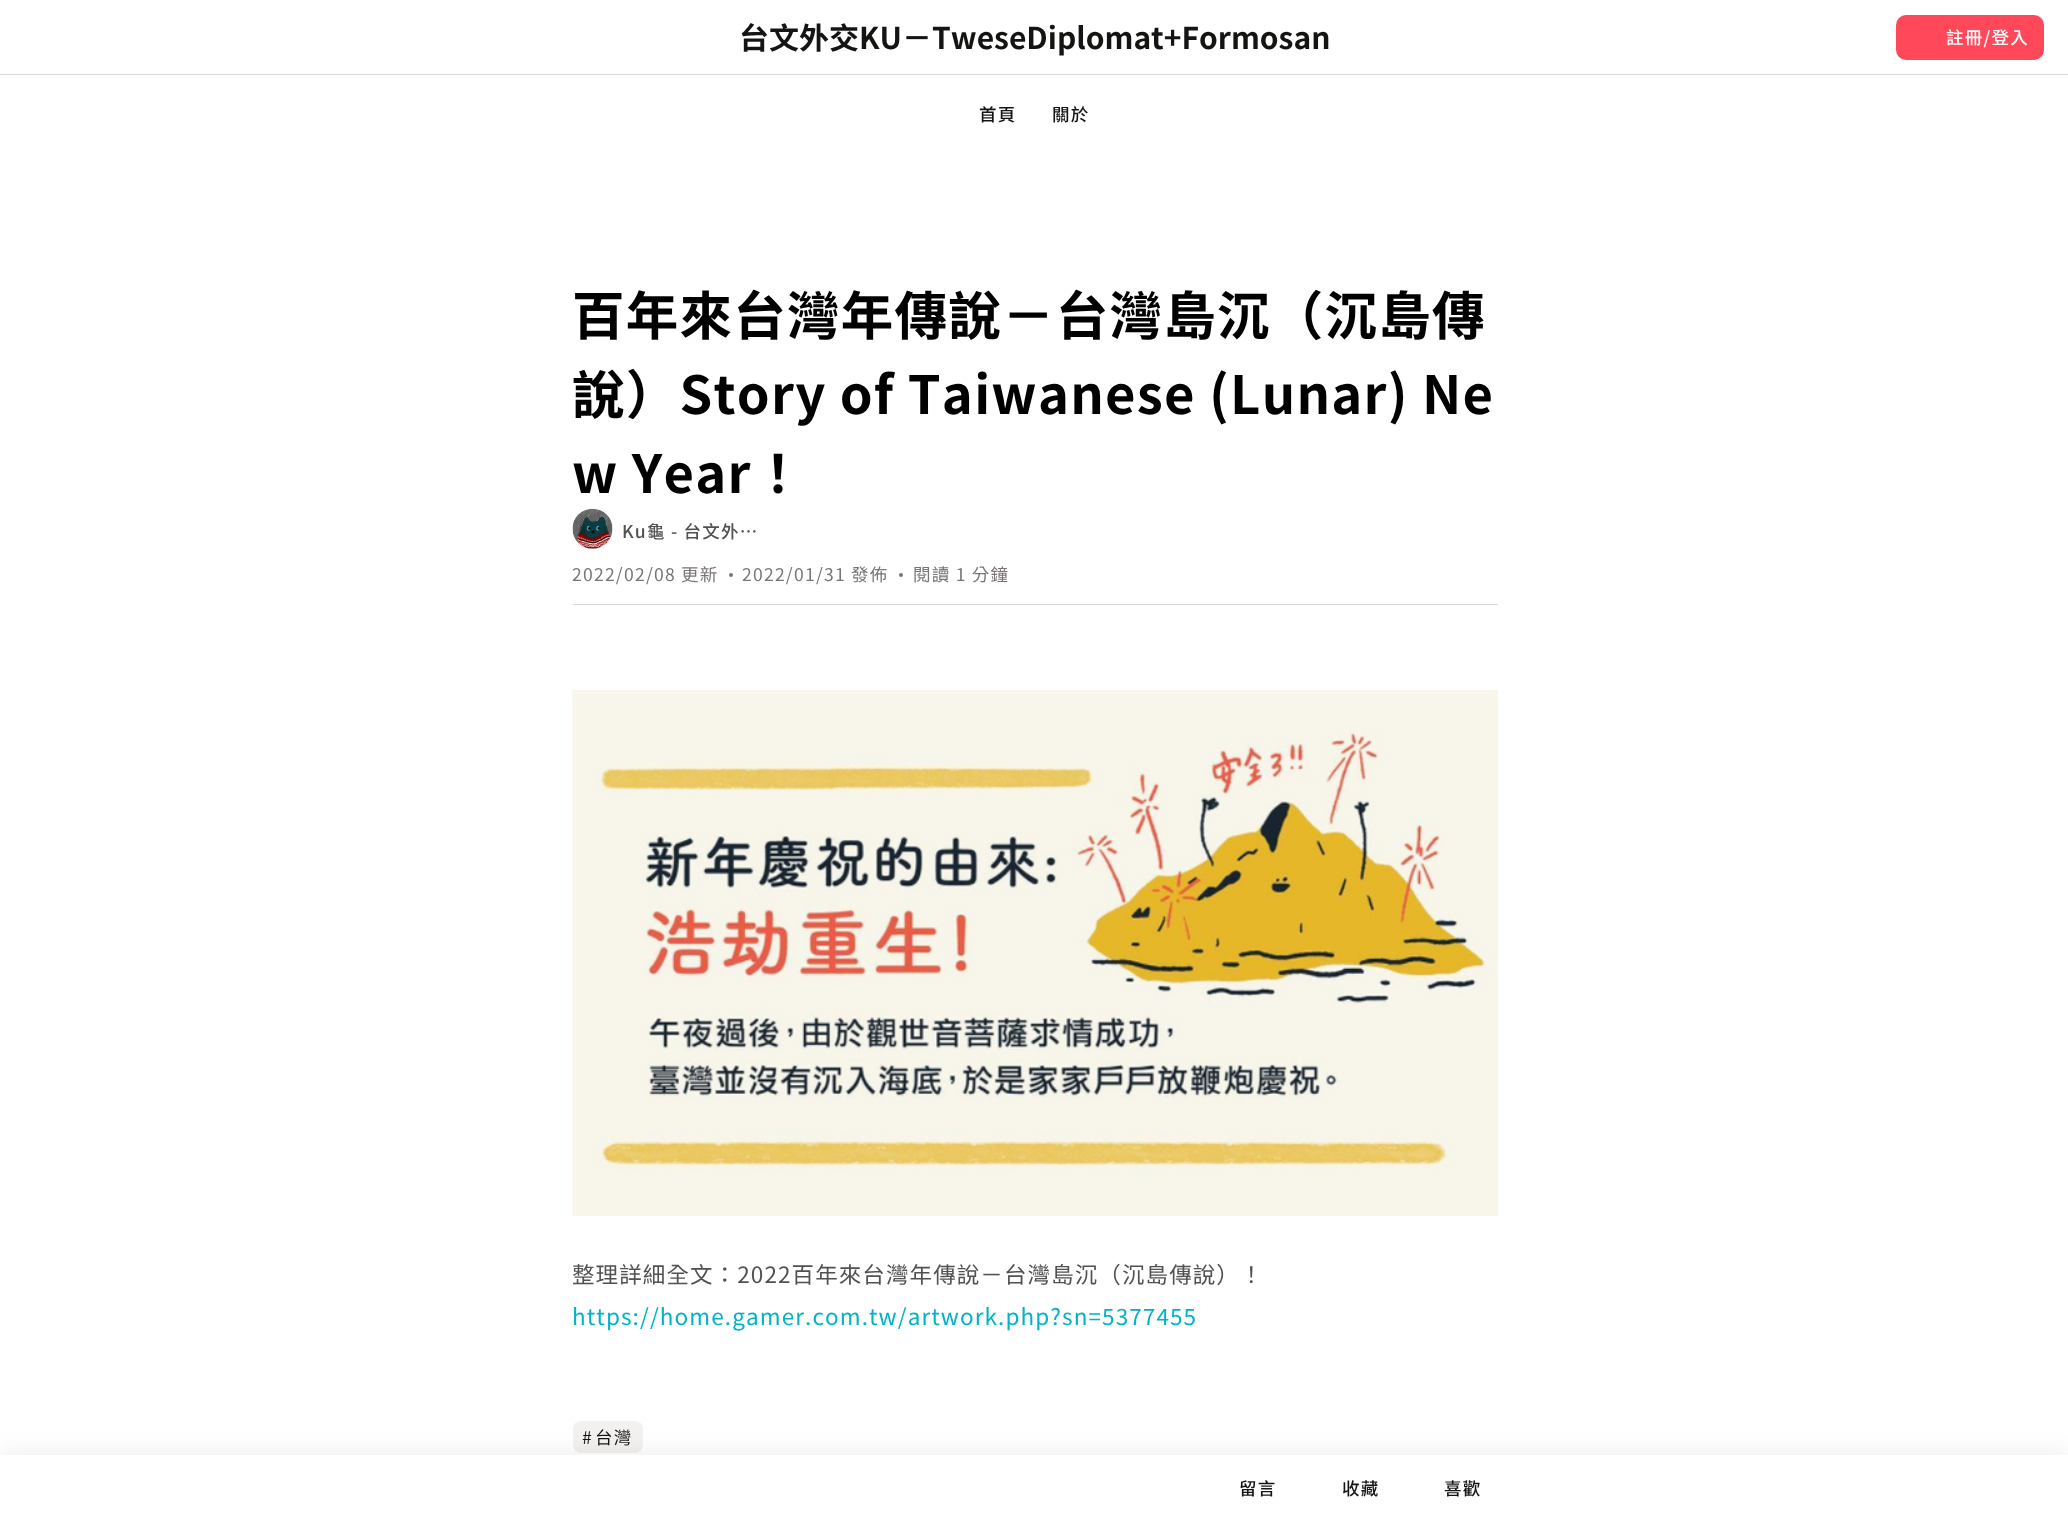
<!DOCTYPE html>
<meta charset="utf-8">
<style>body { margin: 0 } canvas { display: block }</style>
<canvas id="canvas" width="2068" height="1519"></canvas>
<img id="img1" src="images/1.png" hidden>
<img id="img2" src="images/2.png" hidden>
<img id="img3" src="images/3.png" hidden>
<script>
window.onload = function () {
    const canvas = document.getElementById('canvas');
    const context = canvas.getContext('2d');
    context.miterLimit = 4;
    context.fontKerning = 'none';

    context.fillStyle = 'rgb(255, 255, 255)';
    context.fillRect(0, 0, 2068, 1519);
    context.fillStyle = 'rgb(221, 217, 216)';
    context.fillRect(0, 74, 2068, 1);
    context.fillStyle = 'rgb(255, 72, 90)';
    context.beginPath();
    context.roundRect(1896, 15, 148, 45, 10);
    context.fill();
    context.drawImage(document.getElementById('img1'), 572, 508, 41, 41);
    context.fillStyle = 'rgb(122, 117, 116)';
    context.beginPath();
    context.arc(731, 575, 2, 0, 2 * Math.PI);
    context.fill();
    context.beginPath();
    context.arc(901, 575, 2, 0, 2 * Math.PI);
    context.fill();
    context.fillStyle = 'rgb(221, 217, 216)';
    context.fillRect(573, 604, 925, 1);
    context.drawImage(document.getElementById('img2'), 572, 690, 926, 527);
    context.drawImage(document.getElementById('img3'), 572, 690, 926, 526);
    context.fillStyle = 'rgb(242, 241, 240)';
    context.beginPath();
    context.roundRect(573, 1421, 70, 32, 8);
    context.fill();
    context.fillStyle = 'rgba(83, 81, 80, 0.08)';
    context.filter = 'blur(10px)';
    context.beginPath();
    context.rect(0, 1450, 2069, 65);
    context.fill();
    context.filter = 'none';
    context.fillStyle = 'rgb(255, 255, 255)';
    context.fillRect(0, 1455, 2068, 64);
    context.font = 'bold 30px Noto Sans TC';
    context.fillStyle = 'rgb(20, 20, 19)';
    context.fillText('台文外交KU－TweseDiplomat+Formosan', 739, 49);
    context.letterSpacing = '1.25px';
    context.font = '500 17.5px Noto Sans TC';
    context.fillStyle = 'rgb(255, 255, 255)';
    context.fillText('註冊/登入', 1946, 44);
    context.fillStyle = 'rgb(20, 20, 19)';
    context.fillText('首頁', 979, 121);
    context.fillText('關於', 1052, 121);
    context.font = 'bold 52.5px Noto Sans TC';
    context.fillStyle = 'rgb(0, 0, 0)';
    context.fillText('百年來台灣年傳說－台灣島沉（沉島傳', 572, 335);
    context.fillText('說）Story of Taiwanese', 572, 414);
    context.fillText('(Lunar) Ne', 1209, 414);
    context.fillText('w Year！', 572, 493);
    context.font = '500 17.5px Noto Sans TC';
    context.fillStyle = 'rgb(83, 81, 80)';
    context.fillText('Ku龜 - 台文外…', 622, 538);
    context.font = '17.5px Noto Sans TC';
    context.fillStyle = 'rgb(122, 117, 116)';
    context.fillText('2022/02/08 更新', 572, 581);
    context.fillText('2022/01/31 發佈', 742, 581);
    context.fillText('閱讀 1 分鐘', 913, 581);
    context.letterSpacing = '1.1px';
    context.font = '22.5px Noto Sans TC';
    context.fillStyle = 'rgb(83, 81, 80)';
    context.fillText('整理詳細全文：2022百年來台灣年傳說－台灣島沉（沉島傳說）！', 572, 1283);
    context.fillStyle = 'rgb(0, 179, 198)';
    context.fillText('https://home.gamer.com.tw/artwork.php?sn=5377455', 572, 1325);
    context.letterSpacing = '1.25px';
    context.font = '17.5px Noto Sans TC';
    context.fillStyle = 'rgb(20, 20, 19)';
    context.fillText('#', 582, 1444);
    context.fillText('台灣', 595, 1444);
    context.font = '500 17.5px Noto Sans TC';
    context.fillText('留言', 1239, 1495);
    context.fillText('收藏', 1342, 1495);
    context.fillText('喜歡', 1444, 1495);
};
</script>
